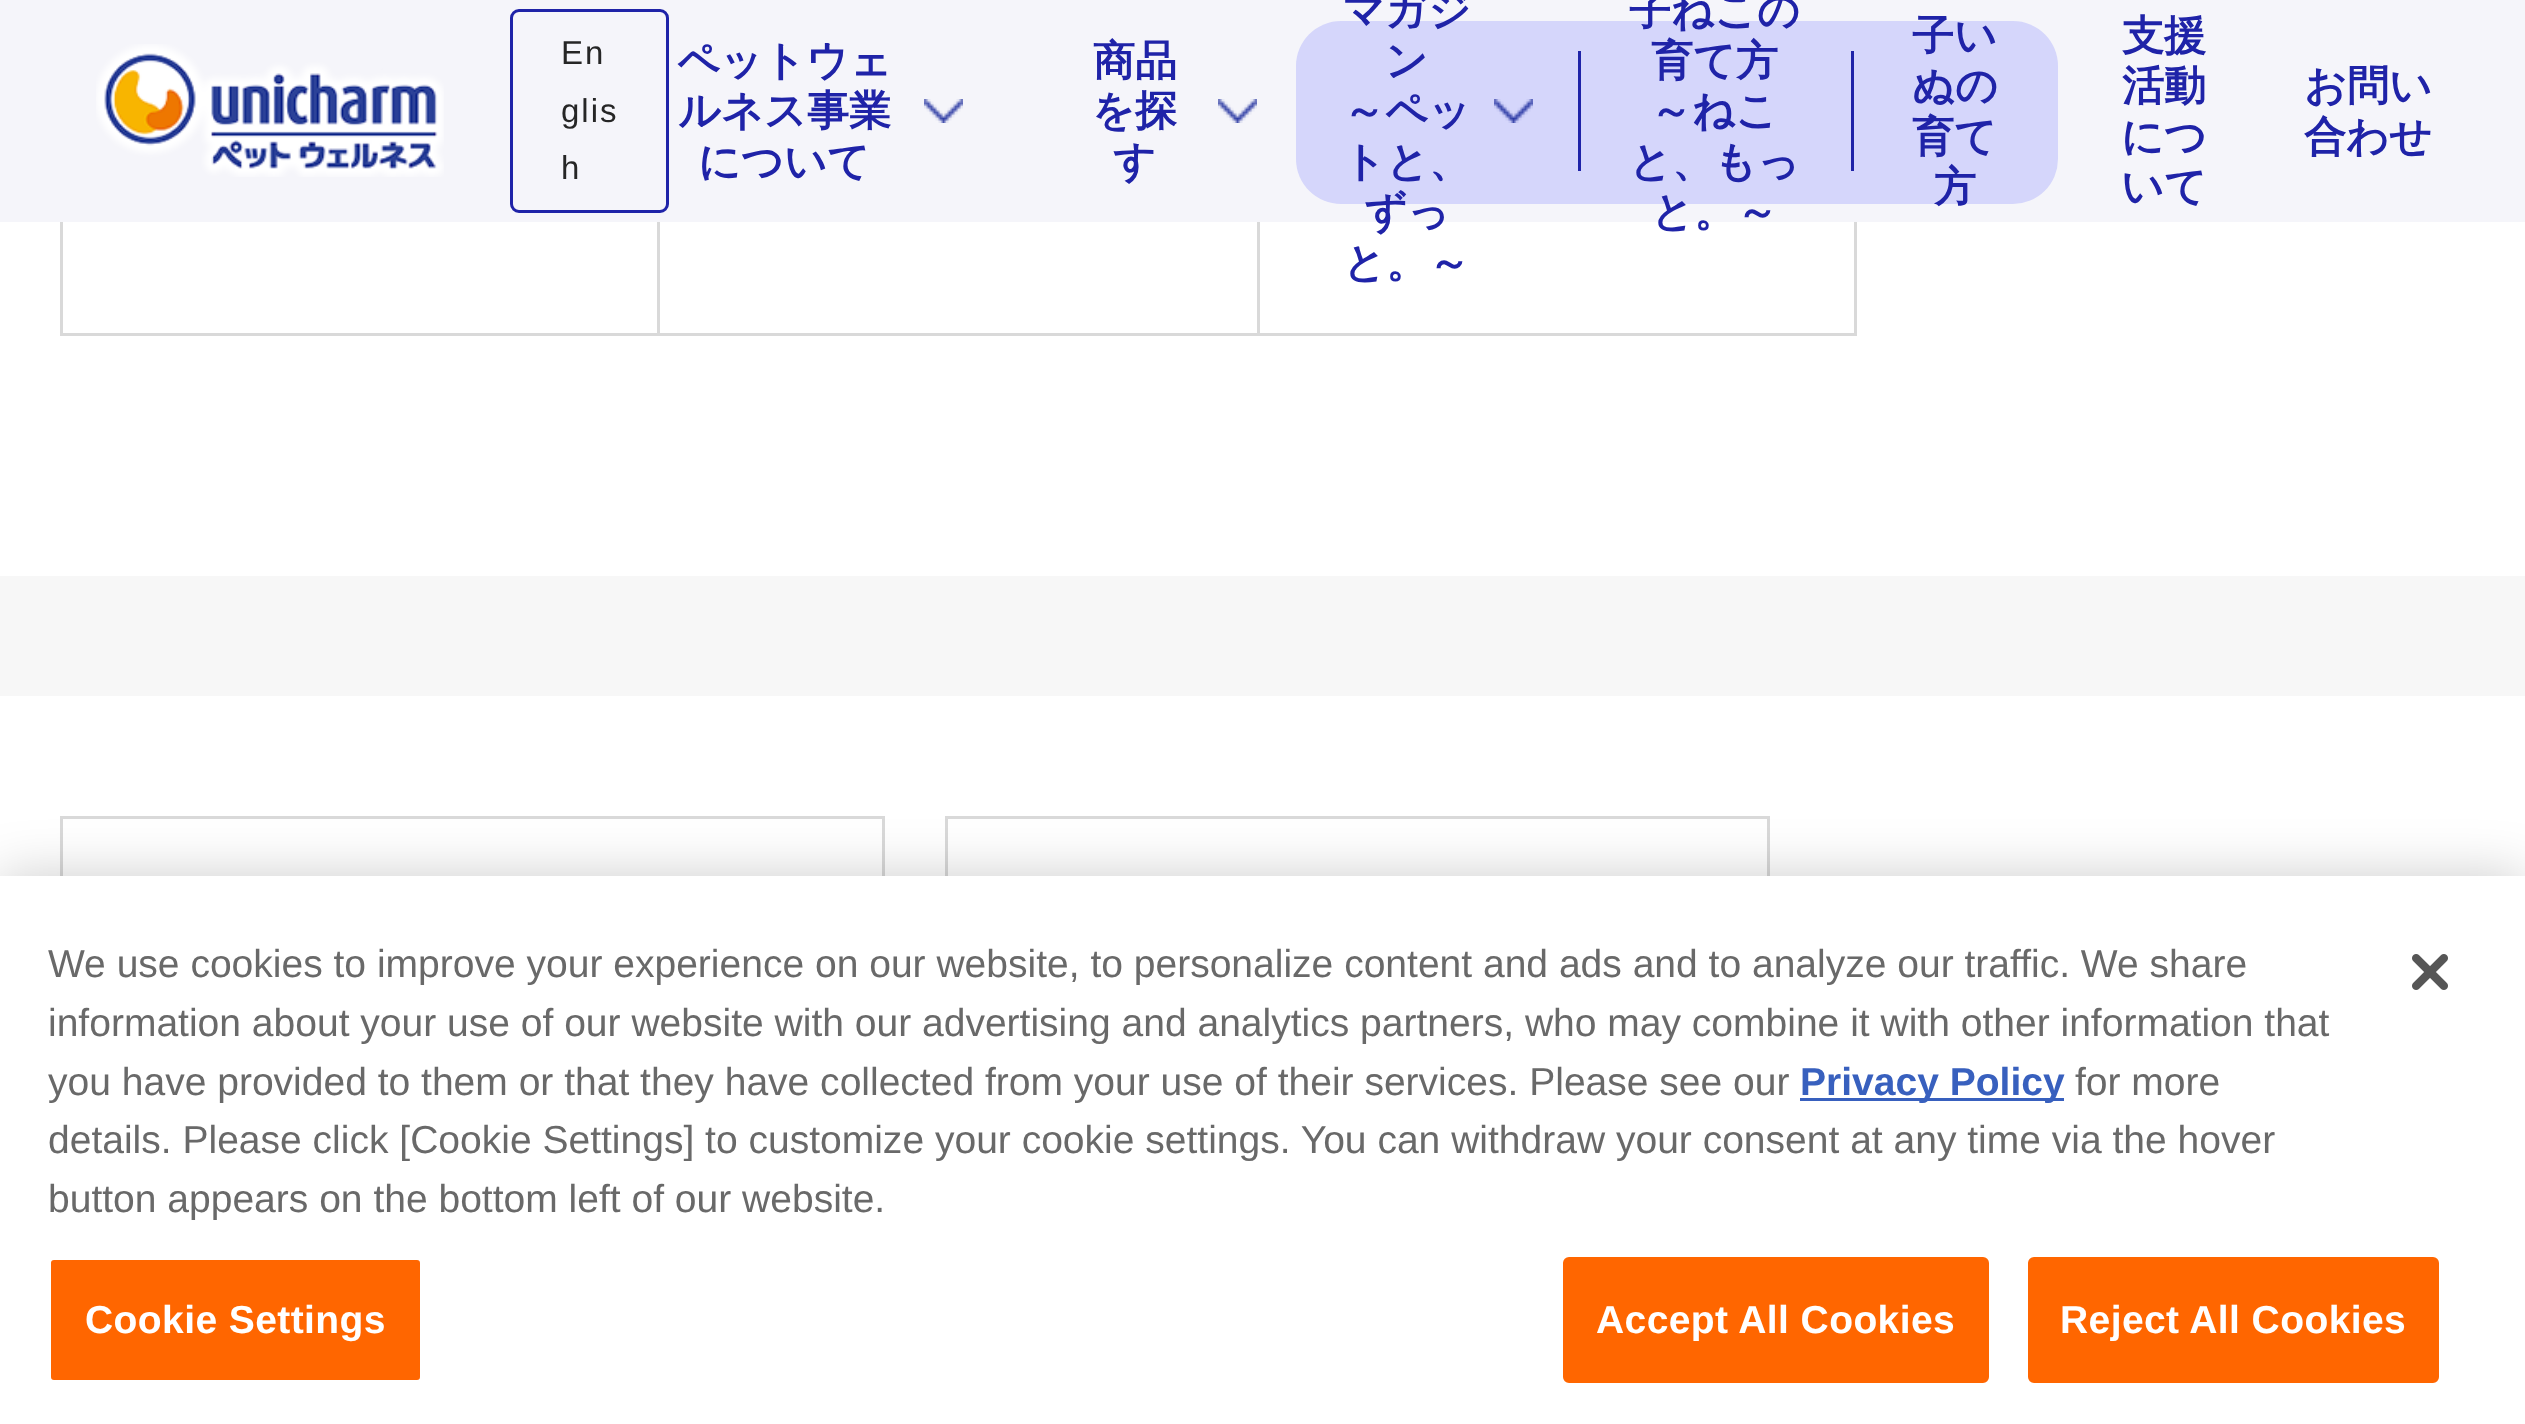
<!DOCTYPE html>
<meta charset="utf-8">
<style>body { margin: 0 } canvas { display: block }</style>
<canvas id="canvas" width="2525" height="1424"></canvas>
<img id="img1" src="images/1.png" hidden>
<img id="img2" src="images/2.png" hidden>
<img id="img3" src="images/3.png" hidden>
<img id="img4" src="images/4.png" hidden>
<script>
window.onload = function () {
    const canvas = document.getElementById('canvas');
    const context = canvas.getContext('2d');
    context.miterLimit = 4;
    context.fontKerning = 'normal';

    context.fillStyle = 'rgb(255, 255, 255)';
    context.fillRect(0, 0, 2525, 1424);
    context.fillStyle = 'rgb(247, 247, 247)';
    context.fillRect(0, 576, 2525, 120);
    context.strokeStyle = 'rgb(217, 217, 217)';
    context.lineWidth = 3;
    context.strokeRect(61.5, -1.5, 597, 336);
    context.strokeRect(658.5, -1.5, 600, 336);
    context.strokeRect(1258.5, -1.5, 597, 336);
    context.fillStyle = 'rgb(245, 245, 250)';
    context.fillRect(0, 0, 2525, 222);
    context.drawImage(document.getElementById('img1'), 96, 44, 348, 133);
    context.beginPath();
    context.roundRect(511.5, 10.5, 156, 201, 7.5);
    context.strokeStyle = 'rgb(31, 35, 168)';
    context.stroke();
    context.drawImage(document.getElementById('img2'), 924, 99, 39, 24);
    context.drawImage(document.getElementById('img2'), 1218, 99, 39, 24);
    context.fillStyle = 'rgb(213, 214, 251)';
    context.beginPath();
    context.roundRect(1296, 21, 282, 183, [45, 0, 0, 45]);
    context.fill();
    context.drawImage(document.getElementById('img3'), 1494, 99, 39, 24);
    context.fillRect(1578, 21, 273, 183);
    context.fillStyle = 'rgb(31, 35, 168)';
    context.fillRect(1578, 51, 3, 120);
    context.fillStyle = 'rgb(213, 214, 251)';
    context.beginPath();
    context.roundRect(1851, 21, 207, 183, [0, 45, 45, 0]);
    context.fill();
    context.fillStyle = 'rgb(31, 35, 168)';
    context.fillRect(1851, 51, 3, 120);
    context.strokeStyle = 'rgb(217, 217, 217)';
    context.strokeRect(61.5, 817.5, 822, 156);
    context.strokeRect(946.5, 817.5, 822, 156);
    context.fillStyle = 'rgba(0, 0, 0, 0.2)';
    context.filter = 'blur(27px)';
    context.beginPath();
    context.rect(0, 876, 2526, 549);
    context.fill();
    context.filter = 'none';
    context.fillStyle = 'rgb(255, 255, 255)';
    context.fillRect(0, 876, 2525, 548);
    context.fillStyle = 'rgb(56, 96, 190)';
    context.fillRect(1800, 1098, 264, 3);
    context.fillStyle = 'rgb(255, 102, 0)';
    context.beginPath();
    context.roundRect(49.5, 1258.5, 372, 123, 4.5);
    context.fill();
    context.strokeStyle = 'rgb(255, 255, 255)';
    context.stroke();
    context.beginPath();
    context.roundRect(1564.5, 1258.5, 423, 123, 4.5);
    context.fill();
    context.strokeStyle = 'rgb(255, 102, 0)';
    context.stroke();
    context.beginPath();
    context.roundRect(2029.5, 1258.5, 408, 123, 4.5);
    context.fill();
    context.stroke();
    context.drawImage(document.getElementById('img4'), 2412, 954, 36, 36);
    context.letterSpacing = '2px';
    context.font = '33px Liberation Sans';
    context.fillStyle = 'rgb(38, 38, 38)';
    context.fillText('En', 561, 64);
    context.fillText('glis', 561, 122);
    context.fillText('h', 561, 179);
    context.letterSpacing = '0px';
    context.font = 'bold 42px WenQuanYi Zen Hei';
    context.fillStyle = 'rgb(31, 35, 168)';
    context.fillText('ペットウェ', 677, 75);
    context.fillText('ルネス事業', 678, 125);
    context.fillText('について', 698, 176);
    context.fillText('商品', 1093, 75);
    context.fillText('を探', 1092, 125);
    context.fillText('す', 1113, 176);
    context.fillText('マガジ', 1342, 25);
    context.fillText('ン', 1385, 75);
    context.fillText('～ペッ', 1343, 125);
    context.fillText('トと、', 1343, 176);
    context.fillText('ずっ', 1364, 226);
    context.fillText('と。～', 1343, 277);
    context.fillText('子ねこの', 1629, 25);
    context.fillText('育て方', 1651, 75);
    context.fillText('～ねこ', 1650, 125);
    context.fillText('と、もっ', 1629, 176);
    context.fillText('と。～', 1651, 226);
    context.fillText('子い', 1912, 50);
    context.fillText('ぬの', 1912, 100);
    context.fillText('育て', 1912, 151);
    context.fillText('方', 1934, 201);
    context.fillText('支援', 2122, 50);
    context.fillText('活動', 2122, 100);
    context.fillText('につ', 2121, 151);
    context.fillText('いて', 2121, 201);
    context.fillText('お問い', 2304, 100);
    context.fillText('合わせ', 2304, 151);
    context.font = '39.02px Liberation Sans';
    context.fillStyle = 'rgb(105, 105, 105)';
    context.fillText('We use cookies to improve your experience on our website, to personalize content and ads and to analyze our traffic. We share', 48, 977);
    context.fillText('information about your use of our website with our advertising and analytics partners, who may combine it with other information that', 48, 1036);
    context.fillText('you have provided to them or that they have collected from your use of their services. Please see our', 48, 1095);
    context.font = 'bold 39.02px Liberation Sans';
    context.fillStyle = 'rgb(56, 96, 190)';
    context.fillText('Privacy Policy', 1800, 1095);
    context.font = '39.02px Liberation Sans';
    context.fillStyle = 'rgb(105, 105, 105)';
    context.fillText('for more', 2075, 1095);
    context.fillText('details. Please click [Cookie Settings] to customize your cookie settings. You can withdraw your consent at any time via the hover', 48, 1153);
    context.fillText('button appears on the bottom left of our website.', 48, 1212);
    context.letterSpacing = '0.4px';
    context.font = 'bold 39.02px Liberation Sans';
    context.fillStyle = 'rgb(255, 255, 255)';
    context.fillText('Cookie Settings', 85, 1333);
    context.fillText('Accept All Cookies', 1596, 1333);
    context.fillText('Reject All Cookies', 2060, 1333);
};
</script>
